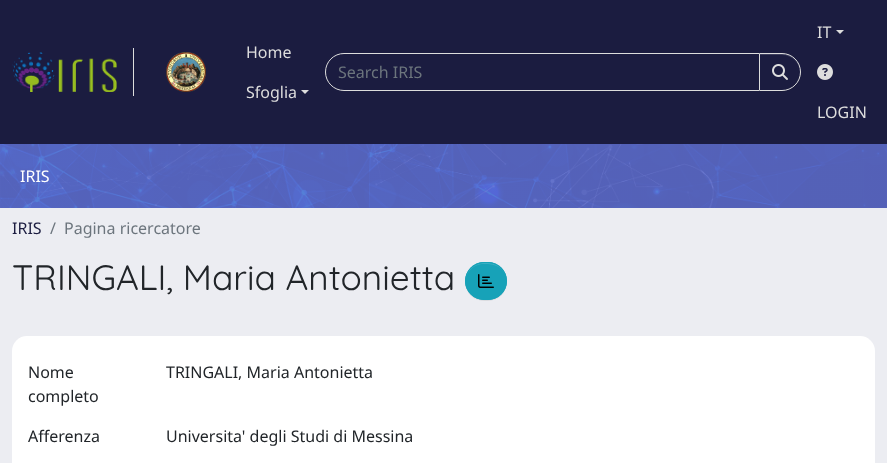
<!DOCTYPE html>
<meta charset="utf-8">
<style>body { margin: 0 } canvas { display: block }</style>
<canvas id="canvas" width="887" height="463"></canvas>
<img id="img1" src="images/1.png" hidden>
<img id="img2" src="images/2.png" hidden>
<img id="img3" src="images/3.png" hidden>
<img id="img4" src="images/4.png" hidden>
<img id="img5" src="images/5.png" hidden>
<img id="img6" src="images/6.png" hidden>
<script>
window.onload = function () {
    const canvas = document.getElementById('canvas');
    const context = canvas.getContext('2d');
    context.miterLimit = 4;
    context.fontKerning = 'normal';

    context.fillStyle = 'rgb(236, 237, 242)';
    context.fillRect(0, 0, 887, 463);
    context.fillStyle = 'rgb(27, 28, 64)';
    context.fillRect(0, 0, 887, 144);
    context.fillStyle = 'rgb(221, 221, 221)';
    context.fillRect(133, 48, 1, 48);
    context.drawImage(document.getElementById('img1'), 12, 52, 105, 40);
    context.drawImage(document.getElementById('img2'), 166, 52, 40, 40);
    context.beginPath();
    context.moveTo(301, 90);
    context.lineTo(309, 90);
    context.lineTo(305, 94);
    context.closePath();
    context.fill();
    context.beginPath();
    context.roundRect(325.5, 53.5, 434, 37, [18.5, 0, 0, 18.5]);
    context.strokeStyle = 'rgb(221, 221, 221)';
    context.stroke();
    context.fillStyle = 'rgba(0, 0, 0, 0.07)';
    context.filter = 'blur(0.5px)';
    context.beginPath();
    context.roundRect(759, 54, 42, 38, 19);
    context.fill();
    context.filter = 'none';
    context.fillStyle = 'rgb(27, 28, 64)';
    context.beginPath();
    context.roundRect(759, 53, 42, 38, [0, 19, 19, 0]);
    context.fill();
    context.fillStyle = 'rgb(61, 62, 93)';
    context.beginPath();
    context.moveTo(760, 55);
    context.lineTo(782, 55);
    context.bezierCurveTo(792, 55, 800, 63, 800, 72);
    context.bezierCurveTo(800, 64, 794, 56, 786, 54);
    context.lineTo(760, 54);
    context.closePath();
    context.fill();
    context.beginPath();
    context.roundRect(759.5, 53.5, 41, 37, [0, 18.5, 18.5, 0]);
    context.stroke();
    context.drawImage(document.getElementById('img3'), 772, 64, 16, 16);
    context.fillStyle = 'rgb(221, 221, 221)';
    context.beginPath();
    context.moveTo(836, 30);
    context.lineTo(844, 30);
    context.lineTo(840, 34);
    context.closePath();
    context.fill();
    context.drawImage(document.getElementById('img4'), 817, 64, 16, 16);
    context.drawImage(document.getElementById('img5'), 0, 144, 887, 64);
    context.fillStyle = 'rgba(0, 0, 0, 0.07)';
    context.filter = 'blur(0.5px)';
    context.beginPath();
    context.roundRect(465, 263, 42, 38, 19);
    context.fill();
    context.filter = 'none';
    context.fillStyle = 'rgb(23, 162, 184)';
    context.beginPath();
    context.roundRect(465, 262, 42, 38, 19);
    context.fill();
    context.fillStyle = 'rgb(58, 176, 195)';
    context.beginPath();
    context.moveTo(484, 264);
    context.bezierCurveTo(494, 264, 503, 266, 506, 278);
    context.bezierCurveTo(502, 255, 463, 259, 466, 283);
    context.bezierCurveTo(465, 274, 472, 264, 484, 264);
    context.closePath();
    context.fill();
    context.beginPath();
    context.roundRect(465.5, 262.5, 41, 37, 18.5);
    context.strokeStyle = 'rgb(23, 162, 184)';
    context.stroke();
    context.drawImage(document.getElementById('img6'), 478, 274, 16, 14);
    context.fillStyle = 'rgb(255, 255, 255)';
    context.beginPath();
    context.roundRect(12, 336, 863, 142, 15);
    context.fill();
    context.font = '16px Noto Sans';
    context.fillStyle = 'rgb(221, 221, 221)';
    context.fillText('Home', 246, 58);
    context.fillText('Sfoglia', 246, 98);
    context.fillStyle = 'rgb(108, 117, 125)';
    context.fillText('Search IRIS', 338, 78);
    context.fillStyle = 'rgb(221, 221, 221)';
    context.fillText('IT', 817, 38);
    context.fillText('LOGIN', 817, 118);
    context.fillStyle = 'rgb(255, 255, 255)';
    context.fillText('IRIS', 20, 182);
    context.fillStyle = 'rgb(27, 28, 64)';
    context.fillText('IRIS', 12, 234);
    context.fillStyle = 'rgb(108, 117, 125)';
    context.fillText('/', 50, 234);
    context.fillText('Pagina ricercatore', 64, 234);
    context.font = '35.25px Quicksand';
    context.fillStyle = 'rgb(33, 37, 41)';
    context.fillText('TRINGALI, Maria Antonietta', 12, 290);
    context.font = '16px Noto Sans';
    context.fillText('Nome', 28, 378);
    context.fillText('completo', 28, 402);
    context.fillText('TRINGALI, Maria Antonietta', 166, 378);
    context.fillText('Afferenza', 28, 442);
    context.fillText('Universita\' degli Studi di Messina', 166, 442);
};
</script>
